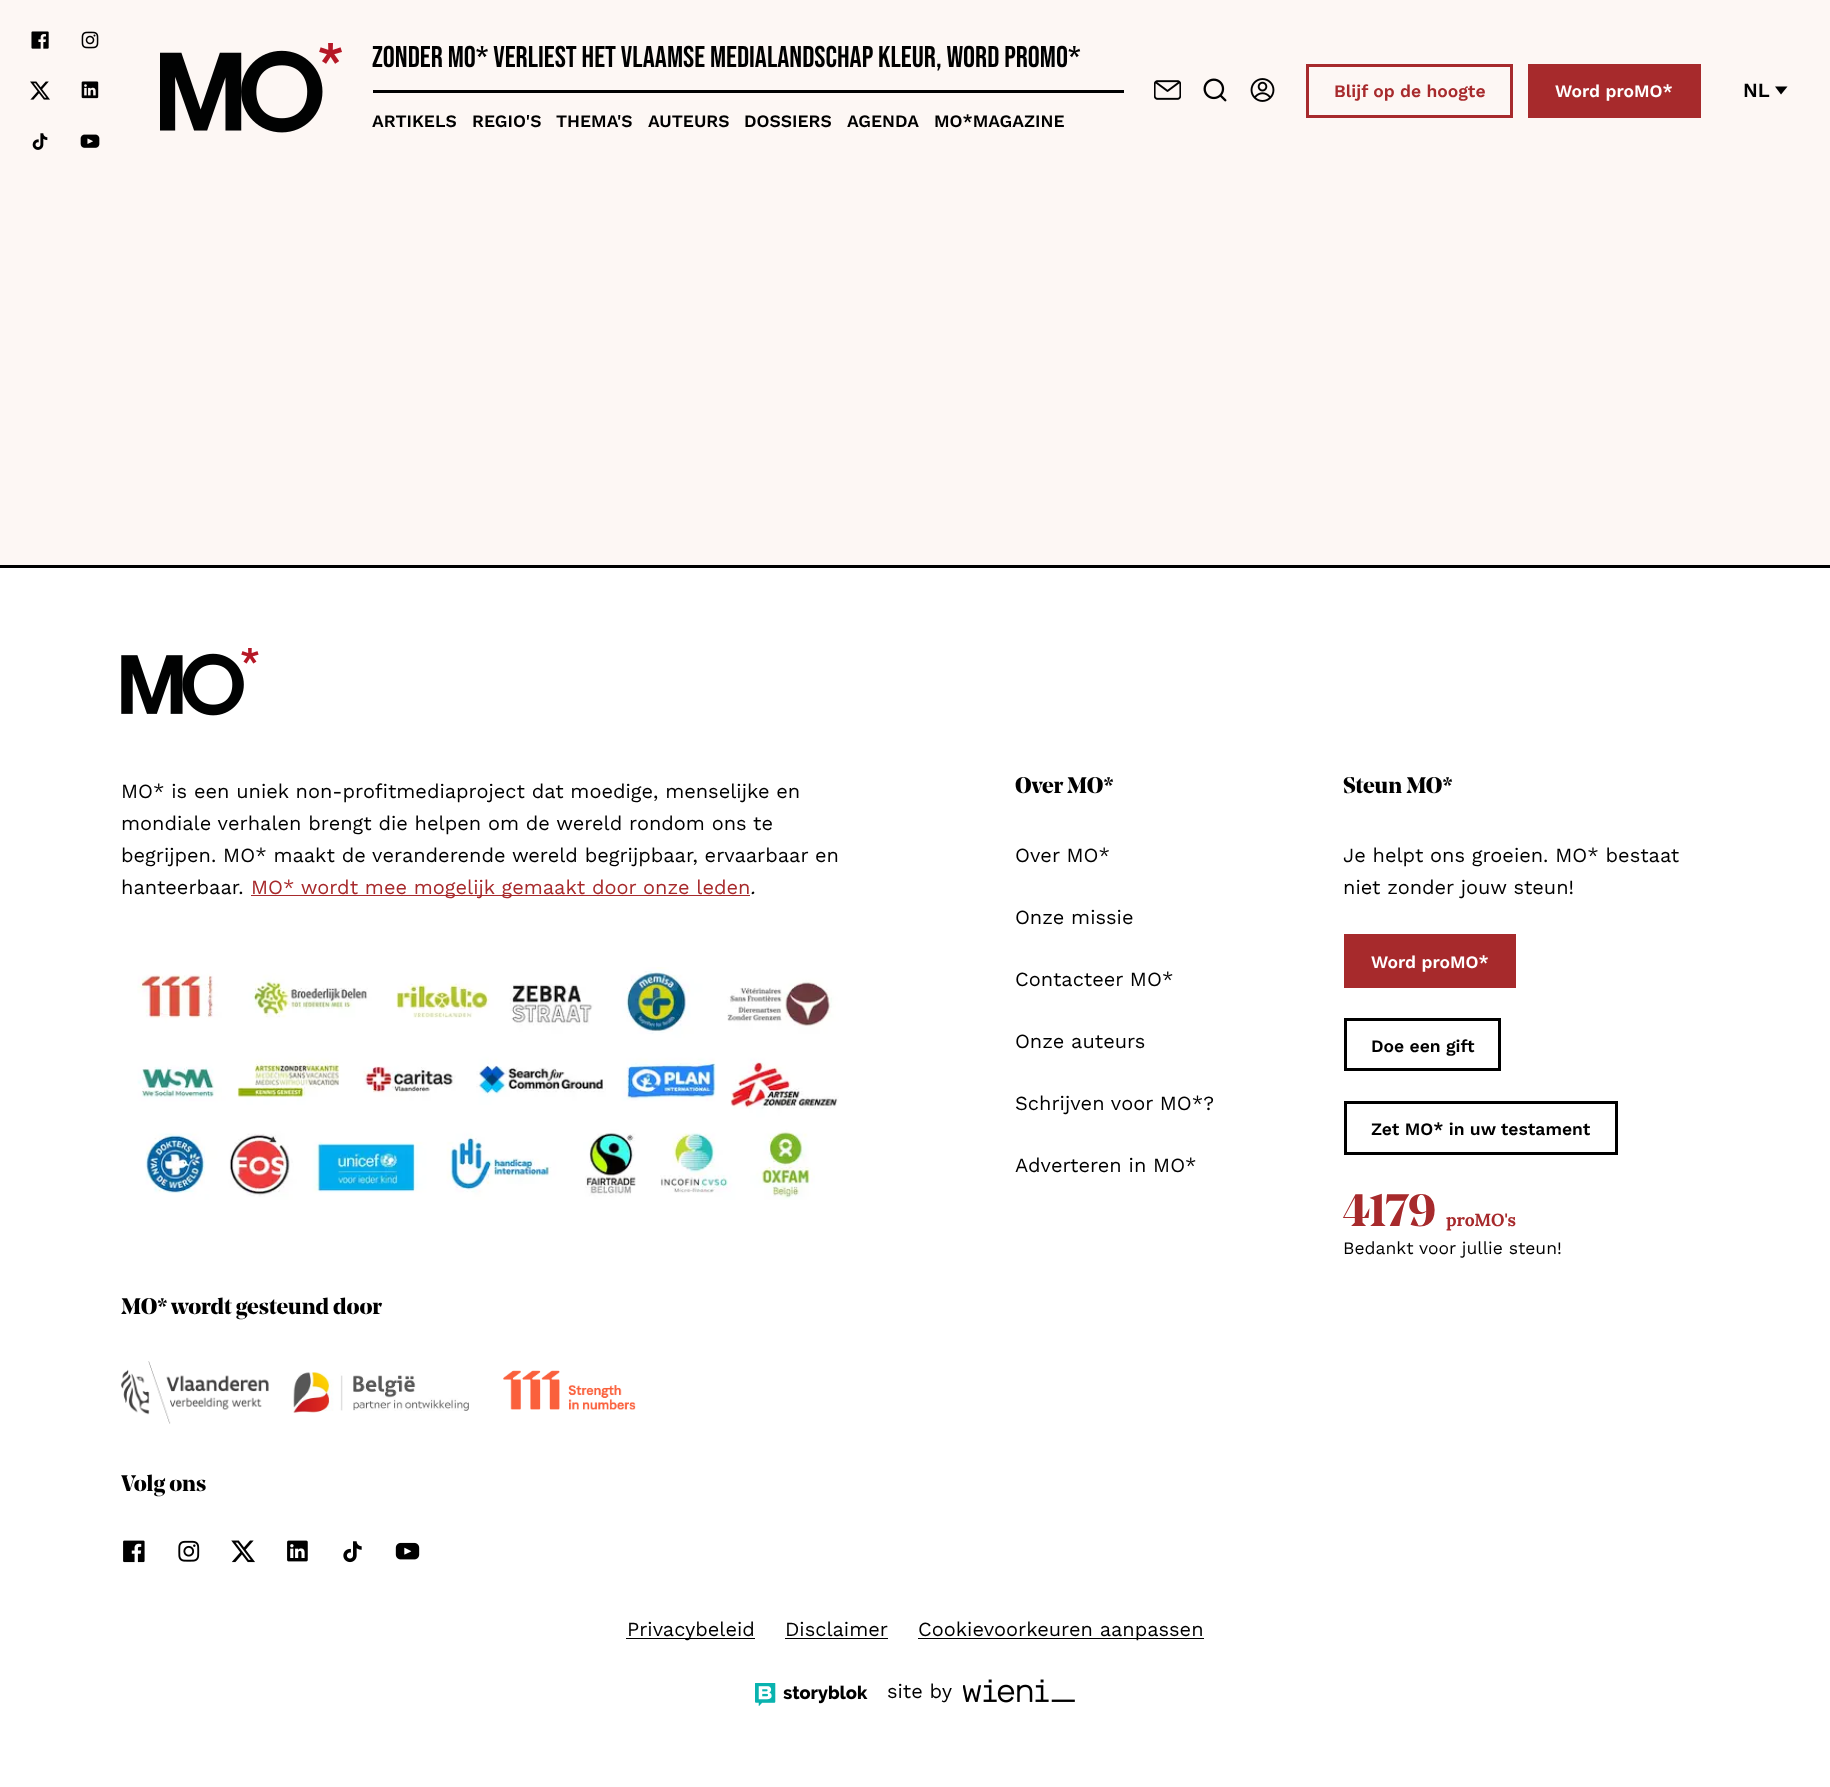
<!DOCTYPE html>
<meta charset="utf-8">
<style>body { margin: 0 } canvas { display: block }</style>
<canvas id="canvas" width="1830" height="1787"></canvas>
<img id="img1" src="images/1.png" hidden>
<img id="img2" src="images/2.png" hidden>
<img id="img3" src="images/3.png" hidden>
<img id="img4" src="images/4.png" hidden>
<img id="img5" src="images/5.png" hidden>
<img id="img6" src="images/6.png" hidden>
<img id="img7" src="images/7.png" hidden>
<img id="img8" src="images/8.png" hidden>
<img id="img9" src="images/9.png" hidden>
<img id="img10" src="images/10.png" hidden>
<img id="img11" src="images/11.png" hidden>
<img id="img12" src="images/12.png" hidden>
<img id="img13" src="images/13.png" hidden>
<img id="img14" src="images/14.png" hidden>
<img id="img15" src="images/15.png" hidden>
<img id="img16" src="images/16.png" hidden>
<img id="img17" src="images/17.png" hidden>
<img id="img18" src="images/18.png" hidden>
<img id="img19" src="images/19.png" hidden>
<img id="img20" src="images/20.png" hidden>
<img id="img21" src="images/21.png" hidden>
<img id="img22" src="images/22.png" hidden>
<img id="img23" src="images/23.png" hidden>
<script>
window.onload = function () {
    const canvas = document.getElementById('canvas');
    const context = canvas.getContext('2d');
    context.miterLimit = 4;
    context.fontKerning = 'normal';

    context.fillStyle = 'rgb(253, 247, 244)';
    context.fillRect(0, 0, 1830, 1787);
    context.drawImage(document.getElementById('img1'), 31, 31, 18, 18);
    context.drawImage(document.getElementById('img2'), 81, 31, 18, 18);
    context.drawImage(document.getElementById('img3'), 30, 81, 20, 19);
    context.drawImage(document.getElementById('img4'), 81, 81, 18, 18);
    context.drawImage(document.getElementById('img5'), 32, 133, 16, 17);
    context.drawImage(document.getElementById('img6'), 80, 134, 20, 14);
    context.drawImage(document.getElementById('img7'), 160, 43, 182, 90);
    context.fillStyle = 'rgb(0, 0, 0)';
    context.fillRect(373, 90, 751, 3);
    context.drawImage(document.getElementById('img8'), 1154, 80, 27, 20);
    context.drawImage(document.getElementById('img9'), 1203, 78, 24, 24);
    context.drawImage(document.getElementById('img10'), 1250, 78, 25, 24);
    context.strokeStyle = 'rgb(167, 42, 44)';
    context.lineWidth = 3;
    context.strokeRect(1307.5, 65.5, 204, 51);
    context.fillStyle = 'rgb(167, 42, 44)';
    context.fillRect(1528, 64, 173, 54);
    context.fillStyle = 'rgb(0, 0, 0)';
    context.beginPath();
    context.moveTo(1781, 94.5);
    context.lineTo(1787.5, 86.5);
    context.lineTo(1775, 86.5);
    context.closePath();
    context.fill();
    context.fillStyle = 'rgb(255, 255, 255)';
    context.fillRect(0, 568, 1830, 1219);
    context.fillStyle = 'rgb(0, 0, 0)';
    context.fillRect(0, 565, 1830, 3);
    context.drawImage(document.getElementById('img11'), 121, 648, 138, 68);
    context.fillStyle = 'rgb(167, 42, 44)';
    context.fillRect(251, 895, 499, 1);
    context.drawImage(document.getElementById('img12'), 137, 967, 702, 233);
    context.drawImage(document.getElementById('img13'), 121, 1361, 148, 63);
    context.drawImage(document.getElementById('img14'), 293, 1372, 176, 41);
    context.drawImage(document.getElementById('img15'), 503, 1370, 133, 40);
    context.drawImage(document.getElementById('img16'), 123, 1540, 22, 23);
    context.drawImage(document.getElementById('img17'), 178, 1540, 22, 22);
    context.drawImage(document.getElementById('img18'), 231, 1540, 24, 23);
    context.drawImage(document.getElementById('img19'), 287, 1540, 21, 22);
    context.drawImage(document.getElementById('img20'), 343, 1541, 19, 22);
    context.drawImage(document.getElementById('img21'), 395, 1542, 25, 18);
    context.fillRect(1344, 934, 172, 54);
    context.strokeStyle = 'rgb(0, 0, 0)';
    context.strokeRect(1345.5, 1019.5, 154, 50);
    context.strokeRect(1345.5, 1102.5, 271, 51);
    context.fillStyle = 'rgb(0, 0, 0)';
    context.fillRect(626, 1638, 129, 1);
    context.fillRect(785, 1638, 103, 1);
    context.fillRect(918, 1638, 286, 1);
    context.drawImage(document.getElementById('img22'), 755, 1683, 113, 23);
    context.drawImage(document.getElementById('img23'), 963, 1679, 112, 24);
    context.font = '30px Bebas Neue';
    context.fillText('Zonder MO* verliest het Vlaamse medialandschap kleur, word proMO*', 372, 67);
    context.font = '600 17.5px Work Sans';
    context.fillText('ARTIKELS', 372, 127);
    context.fillText('REGIO\'S', 472, 127);
    context.fillText('THEMA\'S', 556, 127);
    context.fillText('AUTEURS', 648, 127);
    context.fillText('DOSSIERS', 744, 127);
    context.fillText('AGENDA', 847, 127);
    context.fillText('MO*MAGAZINE', 934, 127);
    context.fillStyle = 'rgb(167, 42, 44)';
    context.fillText('Blijf op de hoogte', 1334, 97);
    context.fillStyle = 'rgb(255, 255, 255)';
    context.fillText('Word proMO*', 1555, 97);
    context.font = '600 20px Work Sans';
    context.fillStyle = 'rgb(0, 0, 0)';
    context.fillText('NL', 1743, 97);
    context.font = '20px Work Sans';
    context.fillText('MO* is een uniek non-profitmediaproject dat moedige, menselijke en', 121, 798);
    context.fillText('mondiale verhalen brengt die helpen om de wereld rondom ons te', 121, 830);
    context.fillText('begrijpen. MO* maakt de veranderende wereld begrijpbaar, ervaarbaar en', 121, 862);
    context.fillText('hanteerbaar.', 121, 894);
    context.fillStyle = 'rgb(167, 42, 44)';
    context.fillText('MO* wordt mee mogelijk gemaakt door onze leden', 251, 894);
    context.font = 'italic 20px Work Sans';
    context.fillStyle = 'rgb(0, 0, 0)';
    context.fillText('.', 750, 894);
    context.font = 'bold 22.5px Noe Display';
    context.fillText('MO* wordt gesteund door', 121, 1314);
    context.fillText('Volg ons', 121, 1491);
    context.fillText('Over MO*', 1015, 793);
    context.font = '20px Work Sans';
    context.fillText('Over MO*', 1015, 862);
    context.fillText('Onze missie', 1015, 924);
    context.fillText('Contacteer MO*', 1015, 986);
    context.fillText('Onze auteurs', 1015, 1048);
    context.fillText('Schrijven voor MO*?', 1015, 1110);
    context.fillText('Adverteren in MO*', 1015, 1172);
    context.font = 'bold 22.5px Noe Display';
    context.fillText('Steun MO*', 1343, 793);
    context.font = '20px Work Sans';
    context.fillText('Je helpt ons groeien. MO* bestaat', 1343, 862);
    context.fillText('niet zonder jouw steun!', 1343, 894);
    context.font = '600 17.5px Work Sans';
    context.fillStyle = 'rgb(255, 255, 255)';
    context.fillText('Word proMO*', 1371, 968);
    context.fillStyle = 'rgb(0, 0, 0)';
    context.fillText('Doe een gift', 1371, 1052);
    context.fillText('Zet MO* in uw testament', 1371, 1135);
    context.font = 'bold 45px Noe Display';
    context.fillStyle = 'rgb(167, 42, 44)';
    context.fillText('4179', 1343, 1226);
    context.font = 'bold 17.5px Lora';
    context.fillText('proMO\'s', 1446, 1226);
    context.font = '17.5px Work Sans';
    context.fillStyle = 'rgb(0, 0, 0)';
    context.fillText('Bedankt voor jullie steun!', 1343, 1254);
    context.font = '20px Work Sans';
    context.fillText('Privacybeleid', 627, 1636);
    context.fillText('Disclaimer', 785, 1636);
    context.fillText('Cookievoorkeuren aanpassen', 918, 1636);
    context.fillText('site by', 887, 1698);
};
</script>
